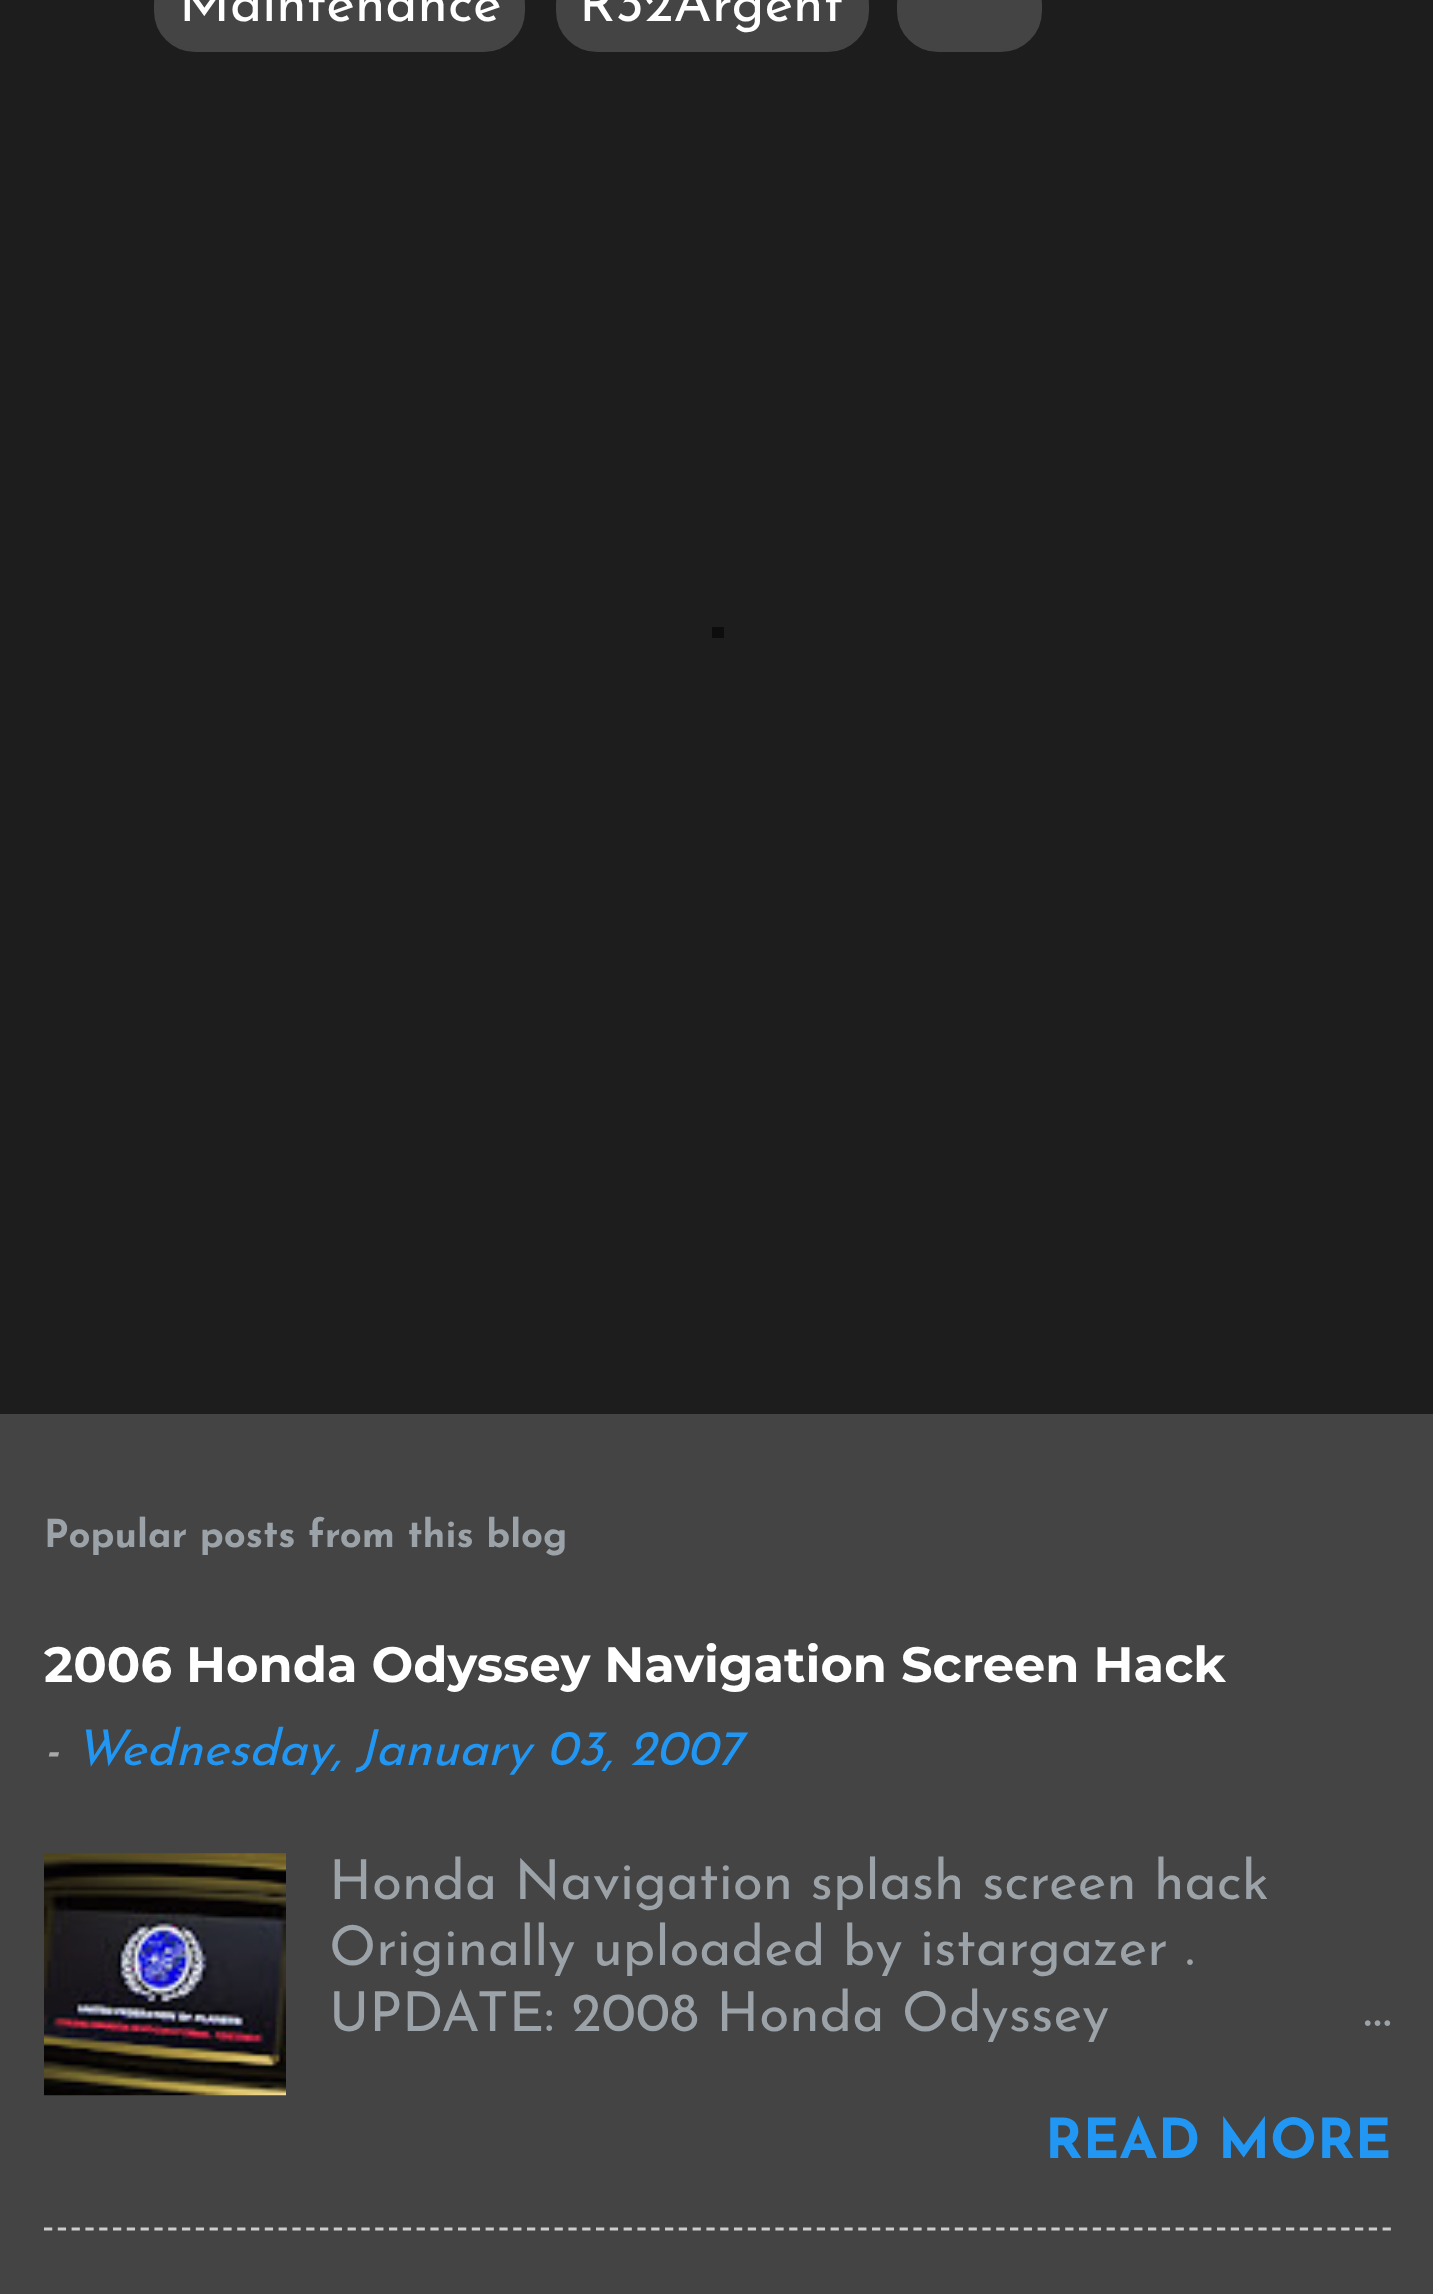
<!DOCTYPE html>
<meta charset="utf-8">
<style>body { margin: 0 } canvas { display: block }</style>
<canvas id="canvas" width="1433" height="2294"></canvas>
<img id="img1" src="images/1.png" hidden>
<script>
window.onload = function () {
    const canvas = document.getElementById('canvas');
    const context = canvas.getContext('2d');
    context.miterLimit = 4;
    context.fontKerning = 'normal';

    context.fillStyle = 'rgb(68, 68, 68)';
    context.fillRect(0, 0, 1433, 2294);
    context.fillStyle = 'rgb(29, 29, 29)';
    context.fillRect(0, 0, 1433, 1414);
    context.fillStyle = 'rgb(68, 68, 68)';
    context.beginPath();
    context.roundRect(155.5, -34.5, 368, 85, 39.5);
    context.fill();
    context.strokeStyle = 'rgb(68, 68, 68)';
    context.lineWidth = 3;
    context.stroke();
    context.beginPath();
    context.roundRect(557.5, -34.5, 310, 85, 39.5);
    context.fill();
    context.stroke();
    context.beginPath();
    context.roundRect(898.5, -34.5, 142, 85, 39.5);
    context.fill();
    context.stroke();
    context.drawImage(document.getElementById('img1'), 44, 1853, 242, 243);
    context.beginPath();
    context.moveTo(44, 2229);
    context.lineTo(1391.5, 2229);
    context.strokeStyle = 'rgb(204, 204, 204)';
    context.lineWidth = 2.8;
    context.setLineDash([8.25, 5.55]);
    context.stroke();
    context.fillStyle = 'rgb(13, 13, 13)';
    context.fillRect(712, 627, 12, 11);
    context.font = '55px Josefin Sans';
    context.fillStyle = 'rgb(255, 255, 255)';
    context.fillText('Maintenance', 179, 21);
    context.fillText('R32Argent', 579, 21);
    context.font = 'bold 38.5px Josefin Sans';
    context.fillStyle = 'rgb(155, 162, 168)';
    context.fillText('Popular posts from this blog', 44, 1547);
    context.font = '100 49.5px Montserrat';
    context.fillStyle = 'rgb(255, 255, 255)';
    context.fillText('2006 Honda Odyssey Navigation Screen Hack', 44, 1682);
    context.font = 'italic 49.5px Josefin Sans';
    context.fillStyle = 'rgb(169, 169, 169)';
    context.fillText('-', 44, 1765);
    context.fillStyle = 'rgb(33, 150, 243)';
    context.fillText('Wednesday, January 03, 2007', 75, 1765);
    context.font = '55px Josefin Sans';
    context.fillStyle = 'rgb(155, 162, 168)';
    context.fillText('Honda Navigation splash screen hack', 329, 1899);
    context.fillText('Originally uploaded by istargazer .', 329, 1965);
    context.fillText('UPDATE: 2008 Honda Odyssey', 329, 2031);
    context.fillText('…', 1363, 2026);
    context.font = 'bold 55px Josefin Sans';
    context.fillStyle = 'rgb(33, 150, 243)';
    context.fillText('READ MORE', 1045, 2158);
};
</script>
